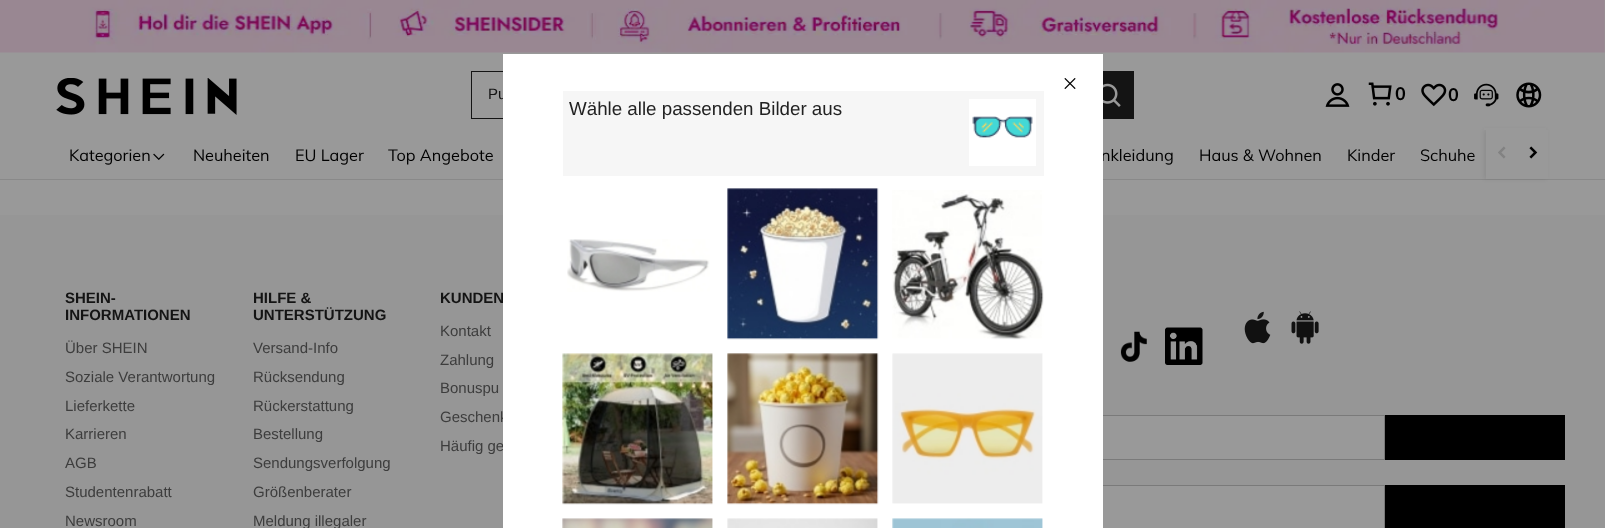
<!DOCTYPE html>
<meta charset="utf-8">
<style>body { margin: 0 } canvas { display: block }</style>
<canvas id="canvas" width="1605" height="528"></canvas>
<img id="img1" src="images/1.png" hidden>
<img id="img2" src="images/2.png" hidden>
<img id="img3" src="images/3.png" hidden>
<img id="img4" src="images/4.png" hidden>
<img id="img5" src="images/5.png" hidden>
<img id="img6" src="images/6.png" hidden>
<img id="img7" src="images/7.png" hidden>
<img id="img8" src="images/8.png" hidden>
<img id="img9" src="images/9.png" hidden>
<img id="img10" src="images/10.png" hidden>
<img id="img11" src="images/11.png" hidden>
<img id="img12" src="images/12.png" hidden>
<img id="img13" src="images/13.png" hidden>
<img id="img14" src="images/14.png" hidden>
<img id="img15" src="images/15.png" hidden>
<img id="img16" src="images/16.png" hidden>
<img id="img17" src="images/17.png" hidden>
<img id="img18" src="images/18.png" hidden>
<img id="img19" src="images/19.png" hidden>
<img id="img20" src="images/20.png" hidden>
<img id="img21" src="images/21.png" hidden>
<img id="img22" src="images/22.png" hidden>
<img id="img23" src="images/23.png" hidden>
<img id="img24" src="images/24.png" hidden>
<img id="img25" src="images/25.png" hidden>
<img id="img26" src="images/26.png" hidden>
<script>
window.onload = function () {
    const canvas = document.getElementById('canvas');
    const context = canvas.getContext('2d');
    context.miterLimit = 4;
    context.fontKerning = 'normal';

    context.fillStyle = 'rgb(153, 153, 153)';
    context.fillRect(0, 0, 1605, 528);
    context.drawImage(document.getElementById('img1'), 0, 0, 1605, 53);
    context.fillStyle = 'rgb(137, 137, 137)';
    context.fillRect(0, 179, 1605, 1);
    context.fillStyle = 'rgba(0, 0, 0, 0.08)';
    context.filter = 'blur(2px)';
    context.beginPath();
    context.rect(1484, 130, 62, 49);
    context.fill();
    context.filter = 'none';
    context.fillStyle = 'rgb(153, 153, 153)';
    context.fillRect(1484, 128, 62, 2);
    context.drawImage(document.getElementById('img2'), 56, 78, 181, 37);
    context.fillStyle = 'rgb(20, 20, 20)';
    context.fillRect(471, 71, 32, 1);
    context.fillRect(471, 118, 32, 1);
    context.fillRect(471, 71, 1, 48);
    context.fillRect(1103, 71, 31, 48);
    context.drawImage(document.getElementById('img3'), 1103, 83, 18, 24);
    context.drawImage(document.getElementById('img4'), 1325, 83, 25, 24);
    context.drawImage(document.getElementById('img5'), 1368, 82, 24, 24);
    context.drawImage(document.getElementById('img6'), 1421, 83, 26, 24);
    context.drawImage(document.getElementById('img7'), 1474, 83, 25, 24);
    context.drawImage(document.getElementById('img8'), 1516, 82, 26, 26);
    context.drawImage(document.getElementById('img9'), 153, 153, 12, 7);
    context.fillStyle = 'rgb(153, 153, 153)';
    context.fillRect(1486, 130, 62, 49);
    context.drawImage(document.getElementById('img10'), 1498, 146, 8, 13);
    context.drawImage(document.getElementById('img11'), 1529, 146, 9, 13);
    context.fillStyle = 'rgb(150, 150, 150)';
    context.fillRect(0, 215, 1605, 313);
    context.drawImage(document.getElementById('img12'), 1120, 331, 27, 31);
    context.drawImage(document.getElementById('img13'), 1165, 327, 38, 38);
    context.drawImage(document.getElementById('img14'), 1244, 311, 27, 33);
    context.drawImage(document.getElementById('img15'), 1291, 311, 28, 33);
    context.fillStyle = 'rgb(153, 153, 153)';
    context.fillRect(1103, 416, 281, 43);
    context.strokeStyle = 'rgb(122, 122, 122)';
    context.strokeRect(815.5, 415.5, 569, 44);
    context.fillStyle = 'rgb(0, 0, 0)';
    context.fillRect(1385, 415, 180, 45);
    context.fillStyle = 'rgb(153, 153, 153)';
    context.fillRect(1103, 486, 281, 42);
    context.strokeRect(915.5, 485.5, 469, 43);
    context.fillStyle = 'rgb(0, 0, 0)';
    context.fillRect(1385, 485, 180, 43);
    context.fillStyle = 'rgba(0, 0, 0, 0.3)';
    context.filter = 'blur(0.5px)';
    context.beginPath();
    context.rect(503, 54, 600, 422);
    context.fill();
    context.filter = 'none';
    context.font = '15px Liberation Sans';
    context.fillStyle = 'rgb(20, 20, 20)';
    context.fillText('Pu', 488, 99);
    context.font = 'bold 18px Muli';
    context.fillStyle = 'rgb(0, 0, 0)';
    context.fillText('0', 1395, 100);
    context.fillText('0', 1448, 101);
    context.font = '16.25px Muli';
    context.fillText('Kategorien', 69, 161);
    context.fillText('Neuheiten', 193, 161);
    context.fillText('EU Lager', 295, 161);
    context.fillText('Top Angebote', 388, 161);
    context.fillText('nkleidung', 1101, 161);
    context.fillText('Haus & Wohnen', 1199, 161);
    context.fillText('Kinder', 1347, 161);
    context.fillText('Schuhe', 1420, 161);
    context.font = 'bold 15px Liberation Sans';
    context.fillStyle = 'rgb(20, 20, 20)';
    context.fillText('SHEIN-', 65, 303);
    context.fillText('INFORMATIONEN', 65, 320);
    context.font = '15px Liberation Sans';
    context.fillStyle = 'rgb(61, 61, 61)';
    context.fillText('Über SHEIN', 65, 353);
    context.fillText('Soziale Verantwortung', 65, 382);
    context.fillText('Lieferkette', 65, 411);
    context.fillText('Karrieren', 65, 439);
    context.fillText('AGB', 65, 468);
    context.fillText('Studentenrabatt', 65, 497);
    context.fillText('Newsroom', 65, 526);
    context.font = 'bold 15px Liberation Sans';
    context.fillStyle = 'rgb(20, 20, 20)';
    context.fillText('HILFE &', 253, 303);
    context.fillText('UNTERSTÜTZUNG', 253, 320);
    context.font = '15px Liberation Sans';
    context.fillStyle = 'rgb(61, 61, 61)';
    context.fillText('Versand-Info', 253, 353);
    context.fillText('Rücksendung', 253, 382);
    context.fillText('Rückerstattung', 253, 411);
    context.fillText('Bestellung', 253, 439);
    context.fillText('Sendungsverfolgung', 253, 468);
    context.fillText('Größenberater', 253, 497);
    context.fillText('Meldung illegaler', 253, 526);
    context.font = 'bold 15px Liberation Sans';
    context.fillStyle = 'rgb(20, 20, 20)';
    context.fillText('KUNDEN', 440, 303);
    context.font = '15px Liberation Sans';
    context.fillStyle = 'rgb(61, 61, 61)';
    context.fillText('Kontakt', 440, 336);
    context.fillText('Zahlung', 440, 365);
    context.fillText('Bonuspu', 440, 393);
    context.fillText('Geschenk', 440, 422);
    context.fillText('Häufig ge', 440, 451);
    context.fillStyle = 'rgb(255, 255, 255)';
    context.fillRect(503, 54, 600, 474);
    context.drawImage(document.getElementById('img16'), 1064, 78, 12, 11);
    context.fillStyle = 'rgb(246, 246, 246)';
    context.fillRect(563, 91, 481, 85);
    context.font = '18.75px Liberation Sans';
    context.fillStyle = 'rgb(34, 34, 34)';
    context.fillText('Wähle alle passenden Bilder aus', 569, 115);
    context.fillStyle = 'rgb(255, 255, 255)';
    context.fillRect(969, 99, 67, 67);
    context.drawImage(document.getElementById('img17'), 972, 116, 61, 22);
    context.drawImage(document.getElementById('img18'), 567, 239, 143, 53);
    context.drawImage(document.getElementById('img19'), 727, 188, 152, 152);
    context.drawImage(document.getElementById('img20'), 892, 190, 152, 150);
    context.drawImage(document.getElementById('img21'), 562, 353, 151, 152);
    context.drawImage(document.getElementById('img22'), 727, 353, 152, 152);
    context.drawImage(document.getElementById('img23'), 892, 353, 151, 151);
    context.drawImage(document.getElementById('img24'), 562, 518, 151, 10);
    context.drawImage(document.getElementById('img25'), 727, 518, 151, 10);
    context.drawImage(document.getElementById('img26'), 892, 518, 151, 10);
};
</script>
